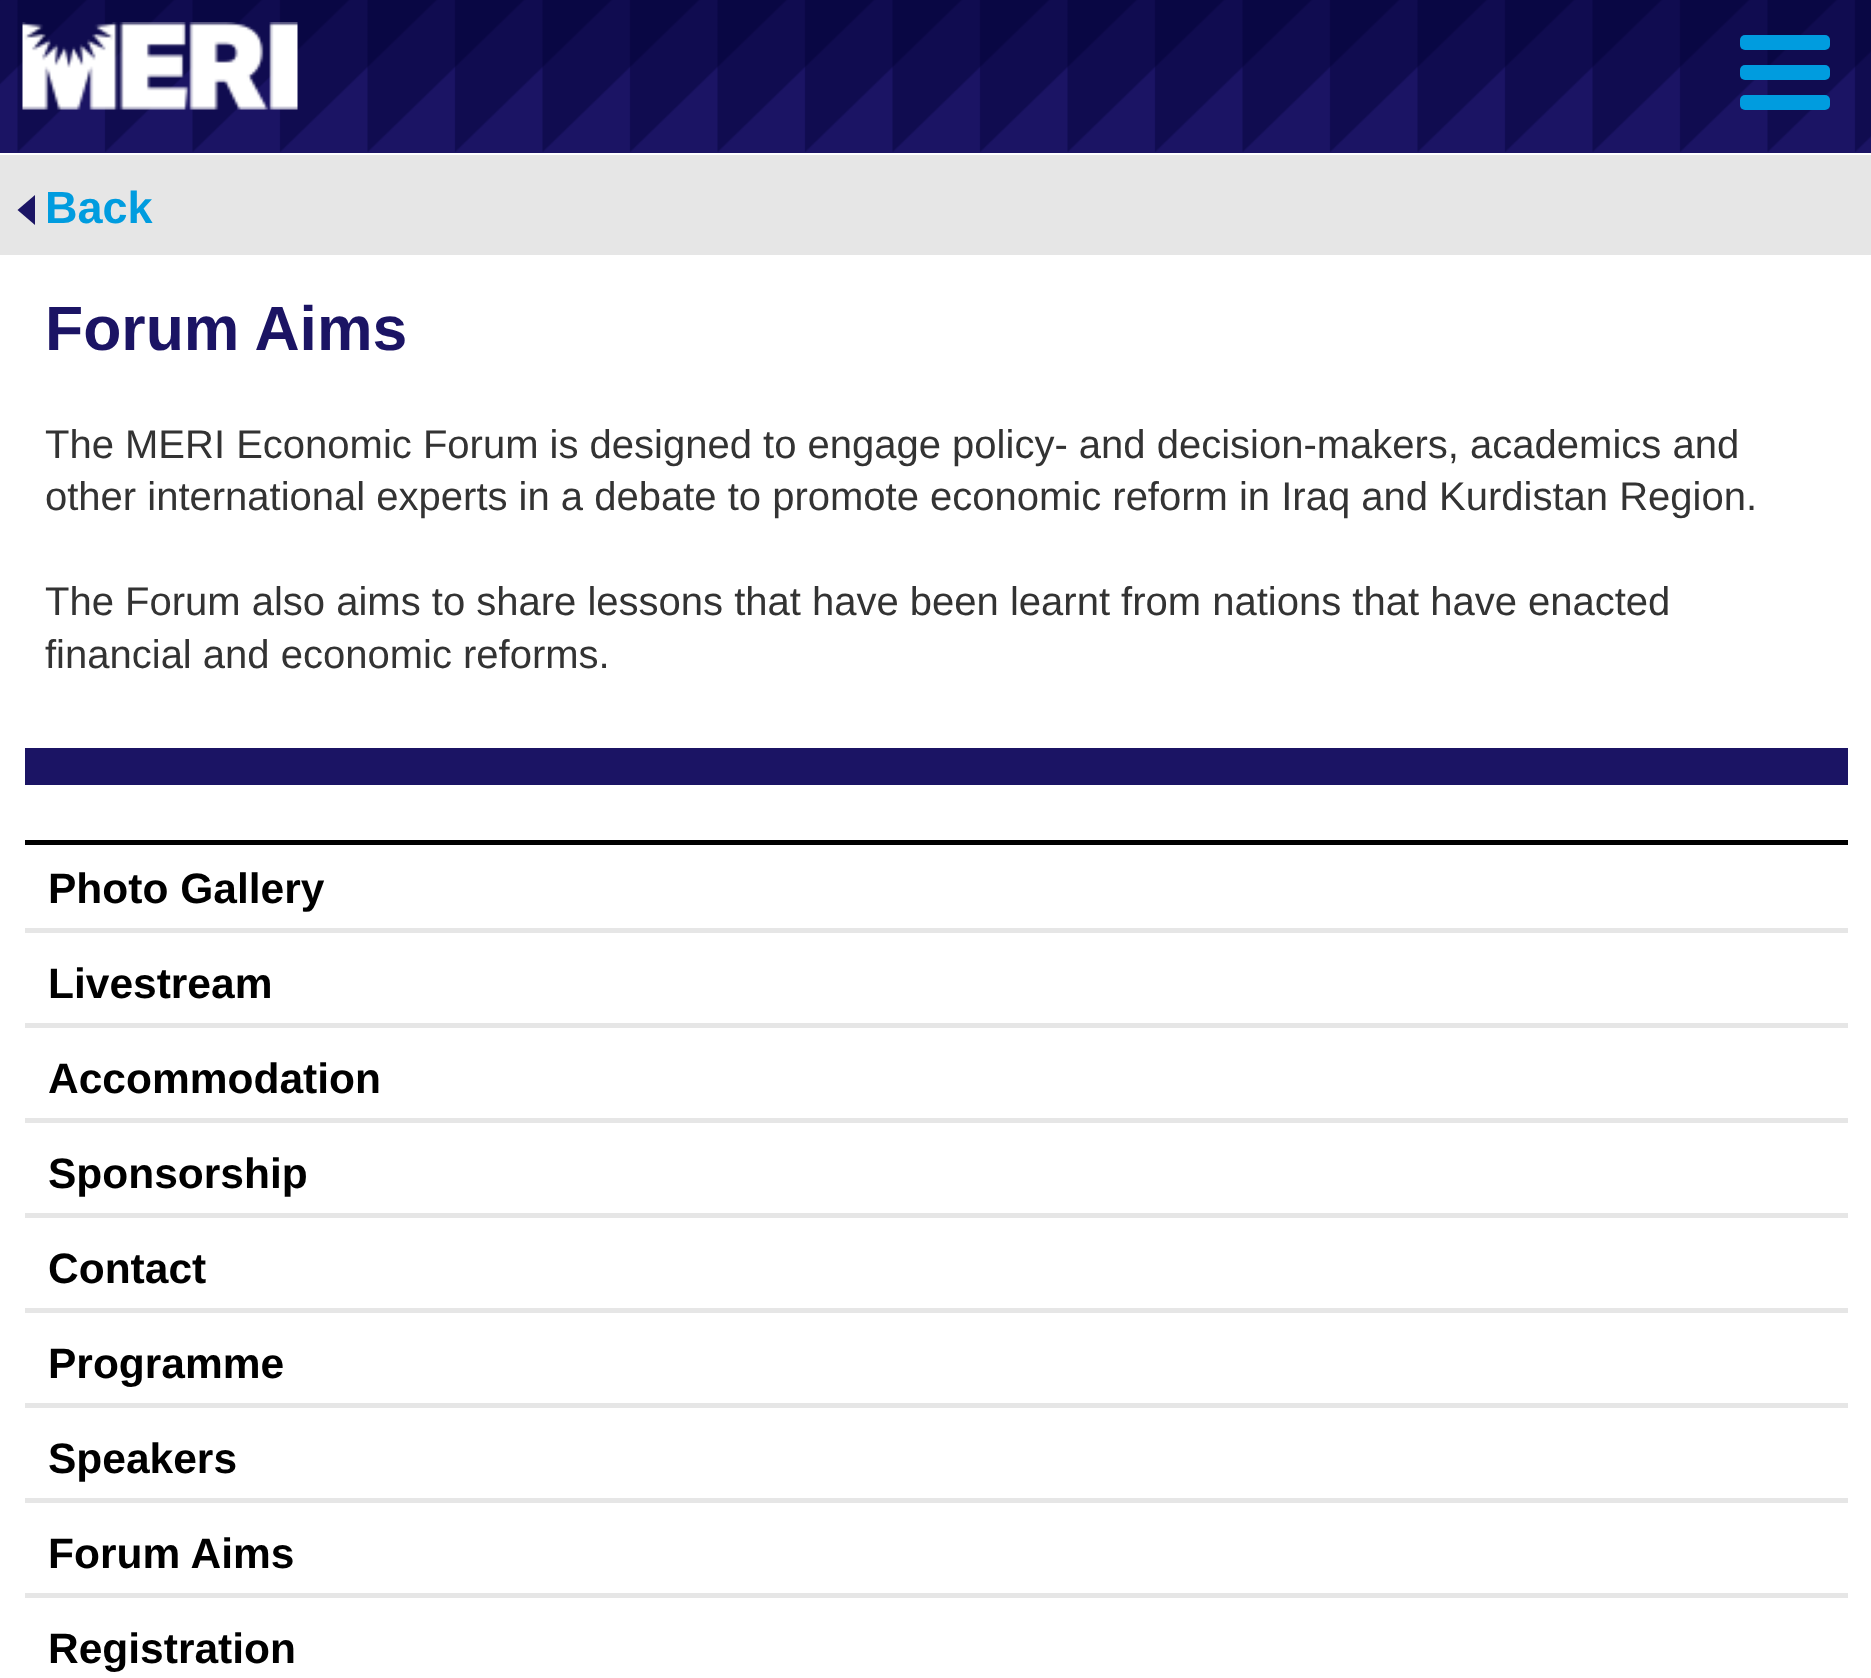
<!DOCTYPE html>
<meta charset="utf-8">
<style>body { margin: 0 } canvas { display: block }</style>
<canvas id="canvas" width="1871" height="1678"></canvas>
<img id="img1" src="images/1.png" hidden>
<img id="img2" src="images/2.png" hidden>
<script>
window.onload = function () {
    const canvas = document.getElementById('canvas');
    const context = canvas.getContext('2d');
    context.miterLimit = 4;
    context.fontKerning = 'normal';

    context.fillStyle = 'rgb(255, 255, 255)';
    context.fillRect(0, 0, 1871, 1678);
    context.fillStyle = 'rgb(27, 20, 100)';
    context.fillRect(0, 0, 1871, 153);
    context.drawImage(document.getElementById('img1'), 0, 0, 1871, 152);
    context.drawImage(document.getElementById('img2'), 22, 22, 276, 88);
    context.fillStyle = 'rgb(0, 156, 223)';
    context.beginPath();
    context.roundRect(1740, 35, 90, 15, 5);
    context.fill();
    context.beginPath();
    context.roundRect(1740, 65, 90, 15, 5);
    context.fill();
    context.beginPath();
    context.roundRect(1740, 95, 90, 15, 5);
    context.fill();
    context.fillStyle = 'rgb(230, 230, 230)';
    context.fillRect(0, 155, 1871, 100);
    context.fillStyle = 'rgb(27, 20, 100)';
    context.beginPath();
    context.moveTo(35, 195);
    context.lineTo(35, 225);
    context.lineTo(17.5, 210);
    context.closePath();
    context.fill();
    context.fillRect(25, 748, 1823, 37);
    context.fillStyle = 'rgb(0, 0, 0)';
    context.fillRect(25, 840, 1823, 5);
    context.fillStyle = 'rgb(230, 230, 230)';
    context.fillRect(25, 928, 1823, 5);
    context.fillRect(25, 1023, 1823, 5);
    context.fillRect(25, 1118, 1823, 5);
    context.fillRect(25, 1213, 1823, 5);
    context.fillRect(25, 1308, 1823, 5);
    context.fillRect(25, 1403, 1823, 5);
    context.fillRect(25, 1498, 1823, 5);
    context.fillRect(25, 1593, 1823, 5);
    context.font = 'bold 45px Liberation Sans';
    context.fillStyle = 'rgb(0, 156, 223)';
    context.fillText('Back', 45, 223);
    context.font = 'bold 62.5px Liberation Sans';
    context.fillStyle = 'rgb(27, 20, 100)';
    context.fillText('Forum Aims', 45, 350);
    context.font = '40px Liberation Sans';
    context.fillStyle = 'rgb(51, 51, 51)';
    context.fillText('The MERI Economic Forum is designed to engage policy- and decision-makers, academics and', 45, 458);
    context.fillText('other international experts in a debate to promote economic reform in Iraq and Kurdistan Region.', 45, 510);
    context.fillText('The Forum also aims to share lessons that have been learnt from nations that have enacted', 45, 615);
    context.fillText('financial and economic reforms.', 45, 668);
    context.font = 'bold 42.5px Liberation Sans';
    context.fillStyle = 'rgb(0, 0, 0)';
    context.fillText('Photo Gallery', 48, 903);
    context.fillText('Livestream', 48, 998);
    context.fillText('Accommodation', 48, 1093);
    context.fillText('Sponsorship', 48, 1188);
    context.fillText('Contact', 48, 1283);
    context.fillText('Programme', 48, 1378);
    context.fillText('Speakers', 48, 1473);
    context.fillText('Forum Aims', 48, 1568);
    context.fillText('Registration', 48, 1663);
};
</script>
